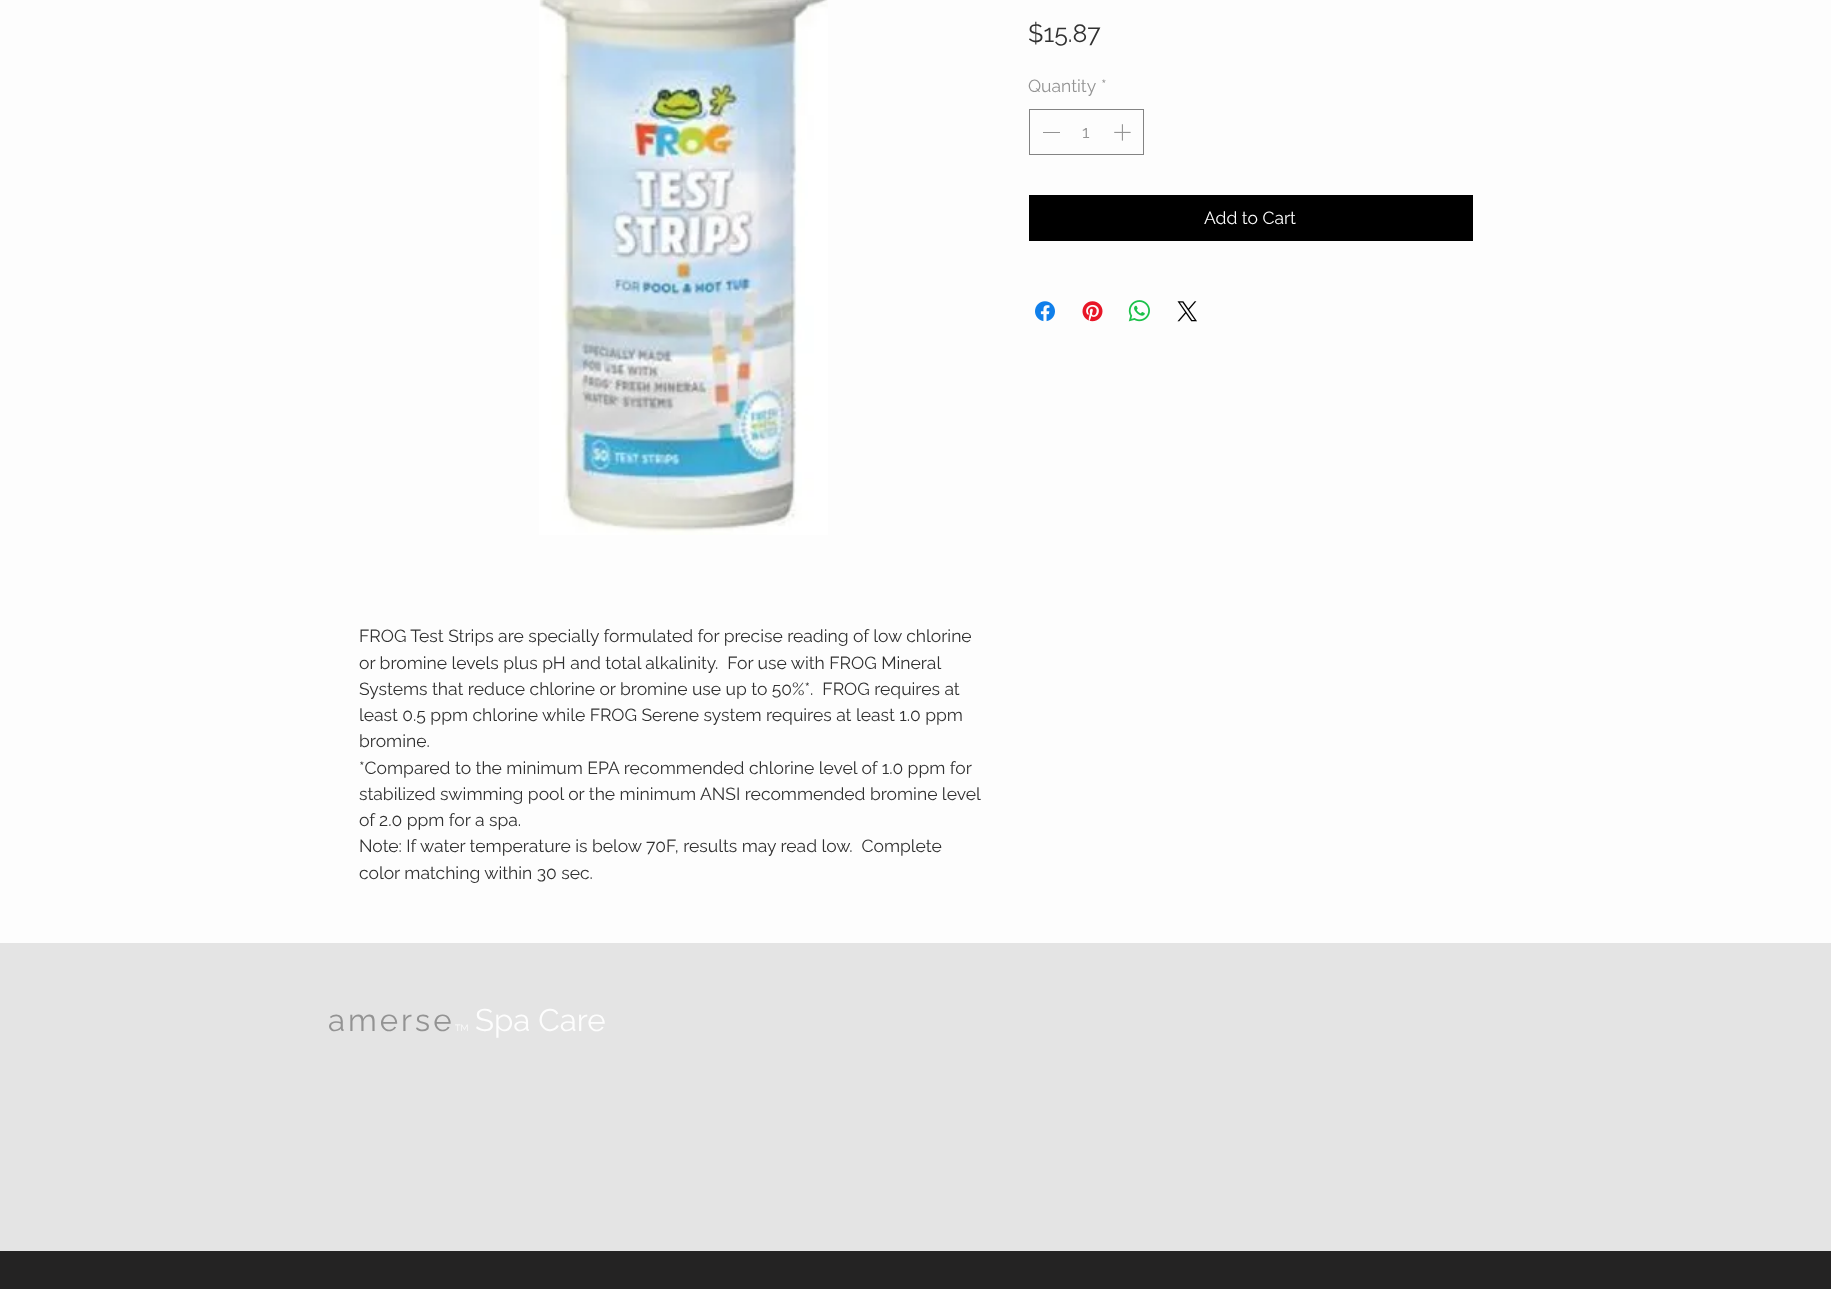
<!DOCTYPE html>
<meta charset="utf-8">
<style>body { margin: 0 } canvas { display: block }</style>
<canvas id="canvas" width="1831" height="1289"></canvas>
<img id="img1" src="images/1.png" hidden>
<img id="img2" src="images/2.png" hidden>
<img id="img3" src="images/3.png" hidden>
<img id="img4" src="images/4.png" hidden>
<img id="img5" src="images/5.png" hidden>
<img id="img6" src="images/6.png" hidden>
<script>
window.onload = function () {
    const canvas = document.getElementById('canvas');
    const context = canvas.getContext('2d');
    context.miterLimit = 4;
    context.fontKerning = 'normal';

    context.fillStyle = 'rgb(253, 253, 253)';
    context.fillRect(0, 0, 1831, 1289);
    context.strokeStyle = 'rgb(131, 131, 131)';
    context.strokeRect(1029.5, 109.5, 114, 45);
    context.fillStyle = 'rgb(147, 147, 147)';
    context.fillRect(1043, 132, 17, 1);
    context.drawImage(document.getElementById('img1'), 1114, 124, 17, 17);
    context.fillStyle = 'rgb(0, 0, 0)';
    context.fillRect(1029, 195, 444, 46);
    context.drawImage(document.getElementById('img2'), 1035, 301, 20, 21);
    context.drawImage(document.getElementById('img3'), 1082, 301, 21, 21);
    context.drawImage(document.getElementById('img4'), 1128, 300, 22, 22);
    context.drawImage(document.getElementById('img5'), 1177, 301, 20, 21);
    context.drawImage(document.getElementById('img6'), 539, 0, 289, 535);
    context.fillStyle = 'rgb(228, 228, 228)';
    context.fillRect(0, 943, 1831, 308);
    context.fillStyle = 'rgb(36, 35, 35)';
    context.fillRect(0, 1251, 1831, 38);
    context.font = '25px Raleway';
    context.fillStyle = 'rgb(49, 49, 49)';
    context.fillText('$15.87', 1028, 42);
    context.font = '17.5px Raleway';
    context.fillStyle = 'rgb(147, 147, 147)';
    context.fillText('Quantity', 1028, 92);
    context.fillText('*', 1101, 92);
    context.fillText('1', 1082, 138);
    context.fillStyle = 'rgb(253, 253, 253)';
    context.fillText('Add to Cart', 1204, 224);
    context.fillStyle = 'rgb(49, 49, 49)';
    context.fillText('FROG Test Strips are specially formulated for precise reading of low chlorine', 359, 642);
    context.fillText('or bromine levels plus pH and total alkalinity.  For use with FROG Mineral', 359, 669);
    context.fillText('Systems that reduce chlorine or bromine use up to 50%*.  FROG requires at', 359, 695);
    context.fillText('least 0.5 ppm chlorine while FROG Serene system requires at least 1.0 ppm', 359, 721);
    context.fillText('bromine.', 359, 747);
    context.fillText('*Compared to the minimum EPA recommended chlorine level of 1.0 ppm for', 359, 774);
    context.fillText('stabilized swimming pool or the minimum ANSI recommended bromine level', 359, 800);
    context.fillText('of 2.0 ppm for a spa.', 359, 826);
    context.fillText('Note: If water temperature is below 70F, results may read low.  Complete', 359, 852);
    context.fillText('color matching within 30 sec.', 359, 879);
    context.letterSpacing = '3px';
    context.font = '31.25px Raleway';
    context.fillStyle = 'rgb(147, 147, 147)';
    context.fillText('amerse', 328, 1031);
    context.letterSpacing = '0px';
    context.font = '9px Raleway';
    context.fillStyle = 'rgb(253, 253, 253)';
    context.fillText('TM', 455, 1031);
    context.font = '31.25px Raleway';
    context.fillText('Spa Care', 475, 1031);
};
</script>
